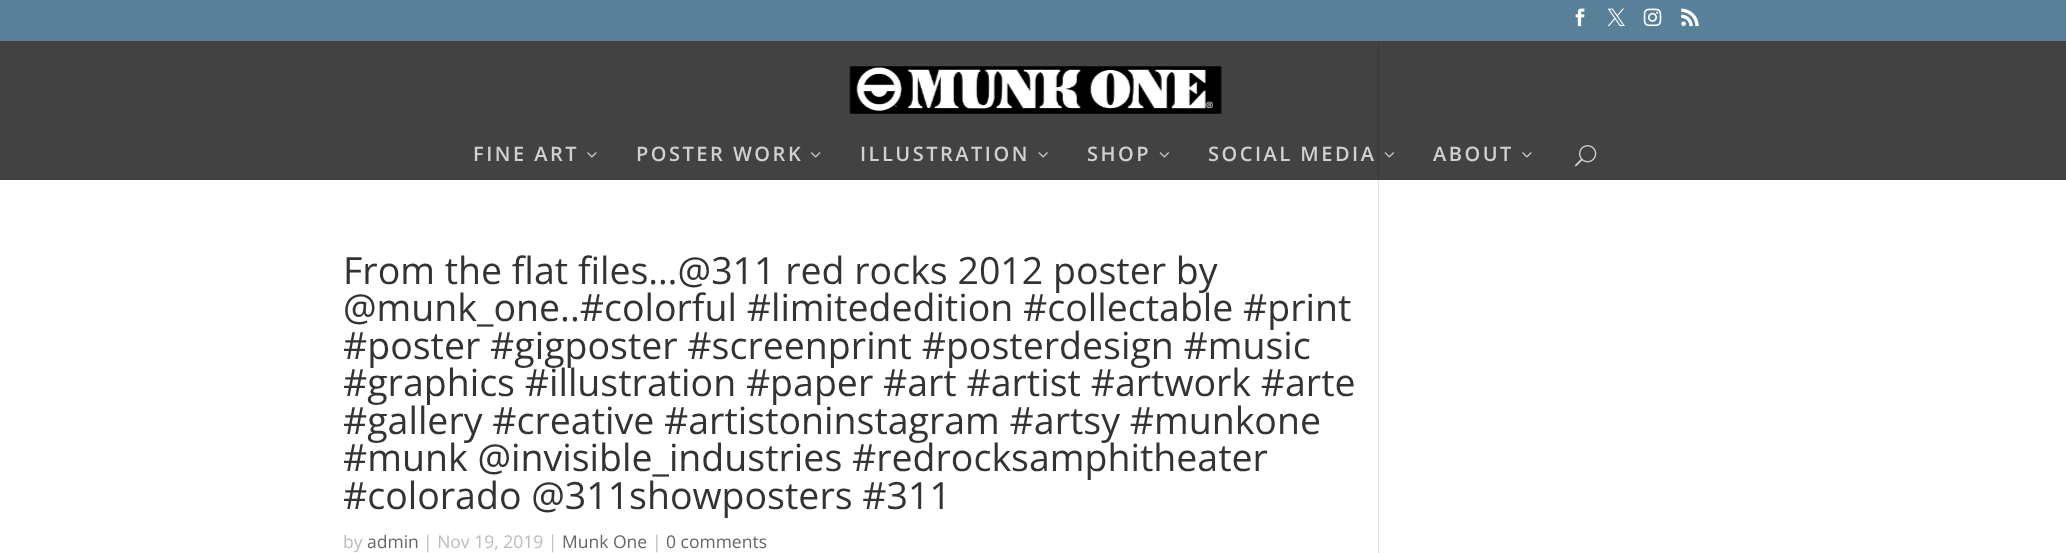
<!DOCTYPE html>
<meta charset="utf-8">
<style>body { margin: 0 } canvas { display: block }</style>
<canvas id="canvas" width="2066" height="553"></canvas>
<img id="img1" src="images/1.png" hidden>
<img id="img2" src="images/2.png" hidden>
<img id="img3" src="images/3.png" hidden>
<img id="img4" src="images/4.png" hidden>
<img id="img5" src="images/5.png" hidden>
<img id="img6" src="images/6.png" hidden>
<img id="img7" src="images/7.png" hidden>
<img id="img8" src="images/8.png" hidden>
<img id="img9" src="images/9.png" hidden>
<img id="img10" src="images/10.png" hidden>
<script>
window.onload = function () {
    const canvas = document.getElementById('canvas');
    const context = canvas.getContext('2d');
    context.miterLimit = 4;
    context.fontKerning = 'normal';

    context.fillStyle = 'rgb(255, 255, 255)';
    context.fillRect(0, 0, 2066, 553);
    context.fillStyle = 'rgb(88, 129, 153)';
    context.fillRect(0, 0, 2066, 41);
    context.drawImage(document.getElementById('img1'), 1575, 8, 10, 19);
    context.drawImage(document.getElementById('img2'), 1607, 8, 18, 19);
    context.drawImage(document.getElementById('img3'), 1643, 8, 19, 19);
    context.drawImage(document.getElementById('img4'), 1681, 8, 18, 19);
    context.fillStyle = 'rgb(66, 66, 66)';
    context.fillRect(0, 41, 2066, 139);
    context.drawImage(document.getElementById('img5'), 849, 66, 373, 48);
    context.drawImage(document.getElementById('img6'), 587, 152, 10, 6);
    context.drawImage(document.getElementById('img7'), 811, 152, 10, 6);
    context.drawImage(document.getElementById('img8'), 1038, 152, 10, 6);
    context.drawImage(document.getElementById('img9'), 1159, 152, 10, 6);
    context.drawImage(document.getElementById('img9'), 1384, 152, 10, 6);
    context.drawImage(document.getElementById('img6'), 1522, 152, 10, 6);
    context.drawImage(document.getElementById('img10'), 1575, 145, 22, 22);
    context.fillStyle = 'rgb(226, 226, 226)';
    context.fillRect(1378, 180, 1, 373);
    context.fillStyle = 'rgb(59, 59, 59)';
    context.fillRect(1378, 41, 1, 139);
    context.letterSpacing = '2.5px';
    context.font = '600 20px Open Sans';
    context.fillStyle = 'rgb(209, 209, 209)';
    context.fillText('FINE ART', 473, 161);
    context.fillText('POSTER WORK', 636, 161);
    context.fillText('ILLUSTRATION', 860, 161);
    context.fillText('SHOP', 1087, 161);
    context.fillText('SOCIAL MEDIA', 1208, 161);
    context.fillText('ABOUT', 1433, 161);
    context.letterSpacing = '0px';
    context.font = '37.5px Open Sans';
    context.fillStyle = 'rgb(51, 51, 51)';
    context.fillText('From the flat files…@311 red rocks 2012 poster by', 343, 284);
    context.fillText('@munk_one..#colorful #limitededition #collectable #print', 343, 321);
    context.fillText('#poster #gigposter #screenprint #posterdesign #music', 343, 359);
    context.fillText('#graphics #illustration #paper #art #artist #artwork #arte', 343, 396);
    context.fillText('#gallery #creative #artistoninstagram #artsy #munkone', 343, 434);
    context.fillText('#munk @invisible_industries #redrocksamphitheater', 343, 471);
    context.fillText('#colorado @311showposters #311', 343, 509);
    context.font = '17.5px Open Sans';
    context.fillStyle = 'rgb(188, 188, 188)';
    context.fillText('by', 343, 548);
    context.fillStyle = 'rgb(102, 102, 102)';
    context.fillText('admin', 367, 548);
    context.fillStyle = 'rgb(188, 188, 188)';
    context.fillText('| Nov 19, 2019 |', 423, 548);
    context.fillStyle = 'rgb(102, 102, 102)';
    context.fillText('Munk One', 562, 548);
    context.fillStyle = 'rgb(188, 188, 188)';
    context.fillText('|', 652, 548);
    context.fillStyle = 'rgb(102, 102, 102)';
    context.fillText('0 comments', 666, 548);
};
</script>
